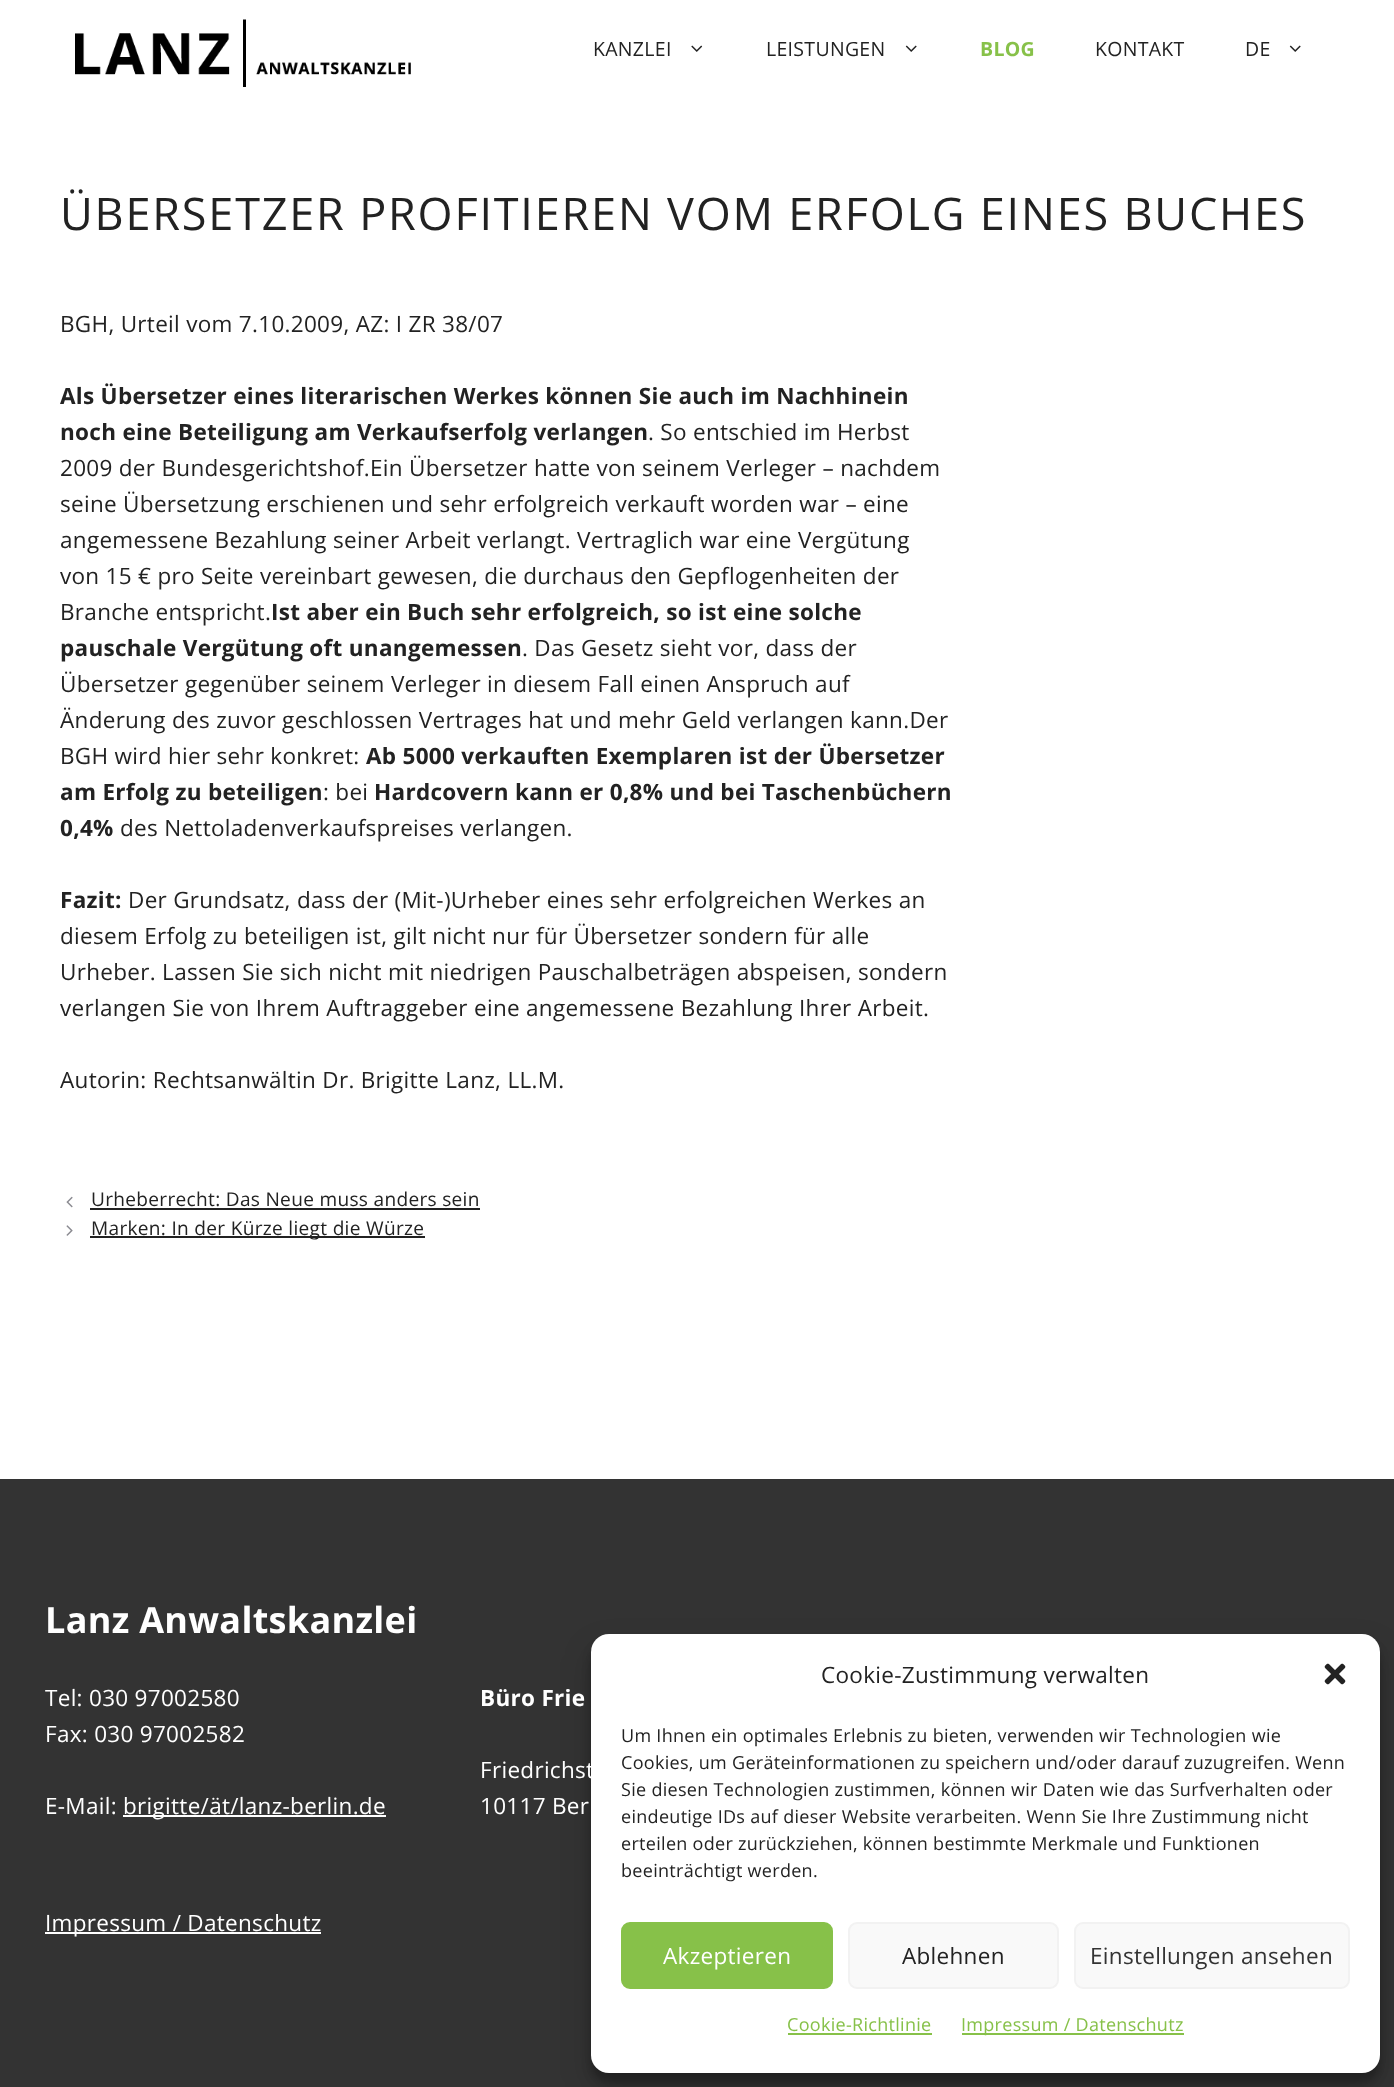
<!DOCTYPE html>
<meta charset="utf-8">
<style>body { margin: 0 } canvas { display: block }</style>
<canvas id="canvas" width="1394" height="2087"></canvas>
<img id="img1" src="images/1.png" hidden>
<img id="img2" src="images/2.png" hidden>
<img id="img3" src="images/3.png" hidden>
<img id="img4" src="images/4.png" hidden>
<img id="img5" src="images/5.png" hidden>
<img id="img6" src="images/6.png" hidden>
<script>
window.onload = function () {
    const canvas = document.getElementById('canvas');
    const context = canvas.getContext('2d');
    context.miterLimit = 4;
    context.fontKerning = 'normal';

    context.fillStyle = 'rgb(255, 255, 255)';
    context.fillRect(0, 0, 1394, 2087);
    context.drawImage(document.getElementById('img1'), 75, 19, 336, 68);
    context.drawImage(document.getElementById('img2'), 691, 45, 12, 7);
    context.drawImage(document.getElementById('img3'), 905, 45, 12, 7);
    context.drawImage(document.getElementById('img3'), 1289, 45, 12, 7);
    context.drawImage(document.getElementById('img4'), 66, 1196, 7, 12);
    context.fillStyle = 'rgb(34, 34, 34)';
    context.fillRect(90, 1208, 390, 2);
    context.drawImage(document.getElementById('img5'), 66, 1225, 7, 11);
    context.fillRect(90, 1236, 335, 2);
    context.fillStyle = 'rgb(51, 51, 51)';
    context.fillRect(0, 1479, 1394, 608);
    context.fillStyle = 'rgb(255, 255, 255)';
    context.fillRect(123, 1815, 263, 2);
    context.fillRect(45, 1932, 276, 2);
    context.fillStyle = 'rgba(0, 0, 0, 0.23)';
    context.filter = 'blur(4.5px)';
    context.beginPath();
    context.roundRect(591, 1643, 789, 439, 18);
    context.fill();
    context.filter = 'none';
    context.fillStyle = 'rgba(0, 0, 0, 0.19)';
    context.filter = 'blur(15px)';
    context.beginPath();
    context.roundRect(591, 1649, 789, 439, 18);
    context.fill();
    context.filter = 'none';
    context.fillStyle = 'rgb(255, 255, 255)';
    context.beginPath();
    context.roundRect(591, 1634, 789, 439, 18);
    context.fill();
    context.drawImage(document.getElementById('img6'), 1324, 1663, 22, 22);
    context.fillStyle = 'rgb(135, 193, 73)';
    context.beginPath();
    context.roundRect(622, 1923, 210, 65, 8);
    context.fill();
    context.strokeStyle = 'rgb(135, 193, 73)';
    context.lineWidth = 2;
    context.stroke();
    context.fillStyle = 'rgb(249, 249, 249)';
    context.beginPath();
    context.roundRect(849, 1923, 209, 65, 8);
    context.fill();
    context.strokeStyle = 'rgb(242, 242, 242)';
    context.stroke();
    context.beginPath();
    context.roundRect(1075, 1923, 274, 65, 8);
    context.fill();
    context.stroke();
    context.fillStyle = 'rgb(135, 193, 73)';
    context.fillRect(788, 2033, 144, 2);
    context.fillRect(962, 2033, 222, 2);
    context.letterSpacing = '0.3px';
    context.font = '19.5px Open Sans';
    context.fillStyle = 'rgb(34, 34, 34)';
    context.fillText('KANZLEI', 593, 56);
    context.fillText('LEISTUNGEN', 766, 56);
    context.font = 'bold 19.5px Open Sans';
    context.fillStyle = 'rgb(135, 193, 73)';
    context.fillText('BLOG', 980, 56);
    context.font = '19.5px Open Sans';
    context.fillStyle = 'rgb(34, 34, 34)';
    context.fillText('KONTAKT', 1095, 56);
    context.fillText('DE', 1245, 56);
    context.letterSpacing = '1.8px';
    context.font = '45px Open Sans';
    context.fillText('ÜBERSETZER PROFITIEREN VOM ERFOLG EINES BUCHES', 60, 230);
    context.letterSpacing = '0.3px';
    context.font = '22.5px Open Sans';
    context.fillText('BGH, Urteil vom 7.10.2009, AZ: I ZR 38/07', 60, 332);
    context.font = 'bold 22.5px Open Sans';
    context.fillText('Als Übersetzer eines literarischen Werkes können Sie auch im Nachhinein', 60, 404);
    context.fillText('noch eine Beteiligung am Verkaufserfolg verlangen', 60, 440);
    context.font = '22.5px Open Sans';
    context.fillText('. So entschied im Herbst', 648, 440);
    context.fillText('2009 der Bundesgerichtshof.Ein Übersetzer hatte von seinem Verleger – nachdem', 60, 476);
    context.fillText('seine Übersetzung erschienen und sehr erfolgreich verkauft worden war – eine', 60, 512);
    context.fillText('angemessene Bezahlung seiner Arbeit verlangt. Vertraglich war eine Vergütung', 60, 548);
    context.fillText('von 15 € pro Seite vereinbart gewesen, die durchaus den Gepflogenheiten der', 60, 584);
    context.fillText('Branche entspricht.', 60, 620);
    context.font = 'bold 22.5px Open Sans';
    context.fillText('Ist aber ein Buch sehr erfolgreich, so ist eine solche', 271, 620);
    context.fillText('pauschale Vergütung oft unangemessen', 60, 656);
    context.font = '22.5px Open Sans';
    context.fillText('. Das Gesetz sieht vor, dass der', 522, 656);
    context.fillText('Übersetzer gegenüber seinem Verleger in diesem Fall einen Anspruch auf', 60, 692);
    context.fillText('Änderung des zuvor geschlossen Vertrages hat und mehr Geld verlangen kann.Der', 60, 728);
    context.fillText('BGH wird hier sehr konkret:', 60, 764);
    context.font = 'bold 22.5px Open Sans';
    context.fillText('Ab 5000 verkauften Exemplaren ist der Übersetzer', 366, 764);
    context.fillText('am Erfolg zu beteiligen', 60, 800);
    context.font = '22.5px Open Sans';
    context.fillText(': bei', 323, 800);
    context.font = 'bold 22.5px Open Sans';
    context.fillText('Hardcovern kann er 0,8% und bei Taschenbüchern', 374, 800);
    context.fillText('0,4%', 60, 836);
    context.font = '22.5px Open Sans';
    context.fillText('des Nettoladenverkaufspreises verlangen.', 120, 836);
    context.font = 'bold 22.5px Open Sans';
    context.fillText('Fazit:', 60, 908);
    context.font = '22.5px Open Sans';
    context.fillText('Der Grundsatz, dass der (Mit-)Urheber eines sehr erfolgreichen Werkes an', 128, 908);
    context.fillText('diesem Erfolg zu beteiligen ist, gilt nicht nur für Übersetzer sondern für alle', 60, 944);
    context.fillText('Urheber. Lassen Sie sich nicht mit niedrigen Pauschalbeträgen abspeisen, sondern', 60, 980);
    context.fillText('verlangen Sie von Ihrem Auftraggeber eine angemessene Bezahlung Ihrer Arbeit.', 60, 1016);
    context.fillText('Autorin: Rechtsanwältin Dr. Brigitte Lanz, LL.M.', 60, 1088);
    context.font = '19.1px Open Sans';
    context.fillText('Urheberrecht: Das Neue muss anders sein', 91, 1206);
    context.fillText('Marken: In der Kürze liegt die Würze', 91, 1235);
    context.font = 'bold 36px Open Sans';
    context.fillStyle = 'rgb(255, 255, 255)';
    context.fillText('Lanz Anwaltskanzlei', 45, 1633);
    context.font = '22.5px Open Sans';
    context.fillText('Tel: 030 97002580', 45, 1706);
    context.fillText('Fax: 030 97002582', 45, 1742);
    context.fillText('E-Mail:', 45, 1814);
    context.fillText('brigitte/ät/lanz-berlin.de', 123, 1814);
    context.font = 'bold 22.5px Open Sans';
    context.fillText('Büro Frie', 480, 1706);
    context.font = '22.5px Open Sans';
    context.fillText('Friedrichst', 480, 1778);
    context.fillText('10117 Ber', 480, 1814);
    context.fillText('Impressum / Datenschutz', 45, 1931);
    context.fillStyle = 'rgb(34, 34, 34)';
    context.fillText('Cookie-Zustimmung verwalten', 821, 1683);
    context.font = '18px Open Sans';
    context.fillText('Um Ihnen ein optimales Erlebnis zu bieten, verwenden wir Technologien wie', 621, 1742);
    context.fillText('Cookies, um Geräteinformationen zu speichern und/oder darauf zuzugreifen. Wenn', 621, 1769);
    context.fillText('Sie diesen Technologien zustimmen, können wir Daten wie das Surfverhalten oder', 621, 1796);
    context.fillText('eindeutige IDs auf dieser Website verarbeiten. Wenn Sie Ihre Zustimmung nicht', 621, 1823);
    context.fillText('erteilen oder zurückziehen, können bestimmte Merkmale und Funktionen', 621, 1850);
    context.fillText('beeinträchtigt werden.', 621, 1877);
    context.font = '22.5px Open Sans';
    context.fillStyle = 'rgb(255, 255, 255)';
    context.fillText('Akzeptieren', 663, 1964);
    context.fillStyle = 'rgb(34, 34, 34)';
    context.fillText('Ablehnen', 902, 1964);
    context.fillStyle = 'rgb(51, 51, 51)';
    context.fillText('Einstellungen ansehen', 1090, 1964);
    context.font = '18px Open Sans';
    context.fillStyle = 'rgb(135, 193, 73)';
    context.fillText('Cookie-Richtlinie', 787, 2031);
    context.fillText('Impressum / Datenschutz', 961, 2031);
};
</script>
